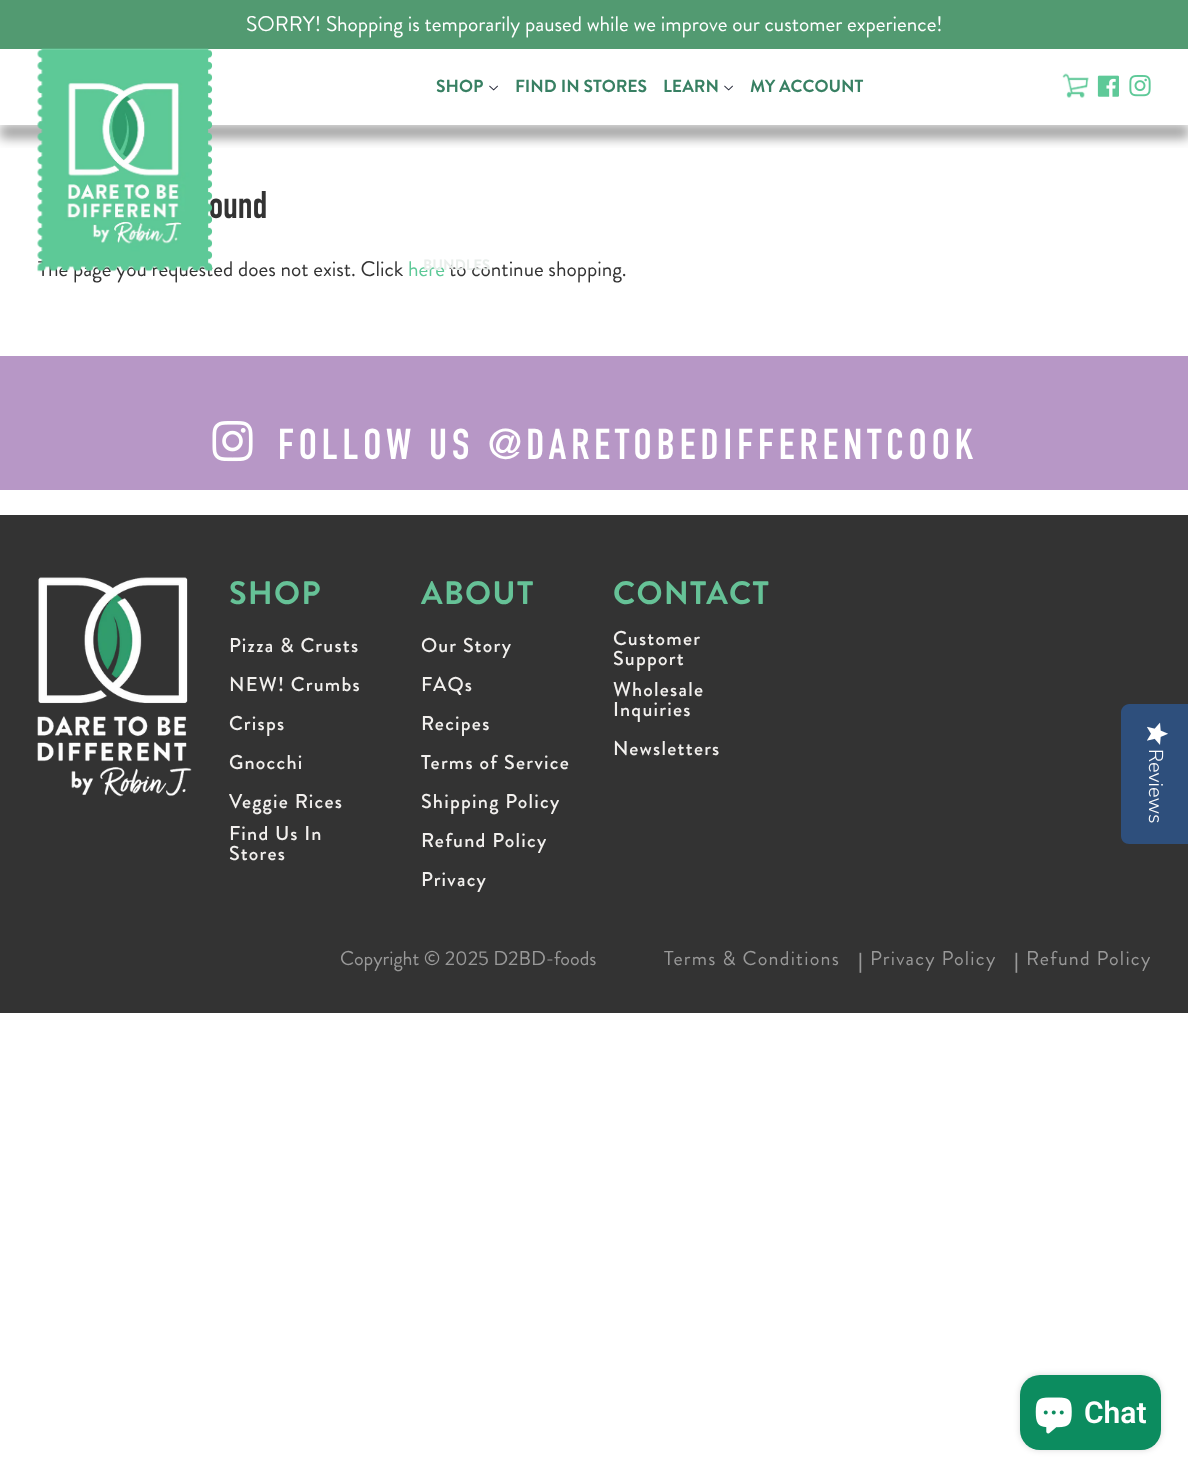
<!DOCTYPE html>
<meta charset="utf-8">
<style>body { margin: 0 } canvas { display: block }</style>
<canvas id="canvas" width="1188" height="1476"></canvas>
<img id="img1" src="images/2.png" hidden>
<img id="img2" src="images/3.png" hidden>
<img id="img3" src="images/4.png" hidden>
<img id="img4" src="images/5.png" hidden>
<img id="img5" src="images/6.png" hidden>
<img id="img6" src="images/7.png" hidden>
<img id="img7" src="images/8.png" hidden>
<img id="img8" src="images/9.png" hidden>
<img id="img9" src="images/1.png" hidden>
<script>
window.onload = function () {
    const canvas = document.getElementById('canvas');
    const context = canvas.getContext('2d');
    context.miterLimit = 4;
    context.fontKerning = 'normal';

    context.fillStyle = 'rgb(255, 255, 255)';
    context.fillRect(0, 0, 1188, 1476);
    context.fillStyle = 'rgb(82, 154, 113)';
    context.fillRect(0, 0, 1188, 49);
    context.drawImage(document.getElementById('img1'), 489, 85, 9, 6);
    context.drawImage(document.getElementById('img1'), 724, 85, 9, 6);
    context.drawImage(document.getElementById('img2'), 1062, 73, 27, 25);
    context.drawImage(document.getElementById('img3'), 1097, 75, 22, 22);
    context.drawImage(document.getElementById('img4'), 1129, 75, 22, 22);
    context.save();
    context.beginPath();
    context.rect(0, 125, 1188, 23);
    context.clip();
    context.fillStyle = 'rgba(0, 0, 0, 0.4)';
    context.filter = 'blur(6px)';
    context.beginPath();
    context.rect(0, 125, 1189, 13);
    context.fill();
    context.filter = 'none';
    context.restore();
    context.fillStyle = 'rgb(183, 151, 198)';
    context.fillRect(0, 356, 1188, 134);
    context.drawImage(document.getElementById('img5'), 212, 421, 41, 41);
    context.fillStyle = 'rgb(51, 51, 51)';
    context.fillRect(0, 515, 1188, 498);
    context.drawImage(document.getElementById('img6'), 37, 577, 155, 220);
    context.fillStyle = 'rgb(46, 79, 124)';
    context.beginPath();
    context.moveTo(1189, 704);
    context.lineTo(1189, 844);
    context.lineTo(1129, 844);
    context.bezierCurveTo(1125, 844, 1121, 841, 1121, 836);
    context.lineTo(1121, 712);
    context.bezierCurveTo(1121, 708, 1125, 704, 1129, 704);
    context.closePath();
    context.fill();
    context.drawImage(document.getElementById('img7'), 1147, 722, 21, 23);
    context.fillStyle = 'rgba(0, 0, 0, 0.15)';
    context.filter = 'blur(3px)';
    context.beginPath();
    context.roundRect(1020, 1375, 141, 75, 20);
    context.fill();
    context.filter = 'none';
    context.fillStyle = 'rgb(12, 140, 95)';
    context.beginPath();
    context.roundRect(1020, 1375, 141, 75, 20);
    context.fill();
    context.drawImage(document.getElementById('img8'), 1035, 1397, 37, 37);
    context.font = '21.25px Brandon Grotesque';
    context.fillStyle = 'rgb(255, 255, 255)';
    context.fillText('SORRY! Shopping is temporarily paused while we improve our customer experience!', 246, 31);
    context.font = 'bold 17.5px Brandon Grotesque';
    context.fillStyle = 'rgb(56, 128, 99)';
    context.fillText('SHOP', 436, 92);
    context.fillText('FIND IN STORES', 515, 92);
    context.fillText('LEARN', 663, 92);
    context.fillText('MY ACCOUNT', 750, 92);
    context.font = 'bold 38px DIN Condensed';
    context.fillStyle = 'rgb(51, 51, 51)';
    context.fillText('ound', 209, 218);
    context.font = '21.25px Brandon Grotesque';
    context.fillText('The page you requested does not exist. Click', 38, 276);
    context.drawImage(document.getElementById('img9'), 37, 48, 176, 224);
    context.fillStyle = 'rgb(94, 201, 152)';
    context.fillText('here', 408, 276);
    context.fillStyle = 'rgb(51, 51, 51)';
    context.fillText('to continue shopping.', 449, 276);
    context.font = 'bold 15px Brandon Grotesque';
    context.fillStyle = 'rgb(233, 238, 235)';
    context.fillText('BUNDLES', 423, 270);
    context.letterSpacing = '5px';
    context.font = 'bold 42.5px DIN Condensed';
    context.fillStyle = 'rgb(255, 255, 255)';
    context.fillText('FOLLOW US @DARETOBEDIFFERENTCOOK', 278, 459);
    context.letterSpacing = '1.25px';
    context.font = 'bold 32.5px Brandon Grotesque';
    context.fillStyle = 'rgb(102, 194, 151)';
    context.fillText('SHOP', 229, 604);
    context.font = '500 20px Brandon Grotesque';
    context.fillStyle = 'rgb(242, 240, 238)';
    context.fillText('Pizza & Crusts', 229, 652);
    context.fillText('NEW! Crumbs', 229, 691);
    context.fillText('Crisps', 229, 730);
    context.fillText('Gnocchi', 229, 769);
    context.fillText('Veggie Rices', 229, 808);
    context.fillText('Find Us In', 229, 840);
    context.fillText('Stores', 229, 860);
    context.font = 'bold 32.5px Brandon Grotesque';
    context.fillStyle = 'rgb(102, 194, 151)';
    context.fillText('ABOUT', 421, 604);
    context.font = '500 20px Brandon Grotesque';
    context.fillStyle = 'rgb(242, 240, 238)';
    context.fillText('Our Story', 421, 652);
    context.fillText('FAQs', 421, 691);
    context.fillText('Recipes', 421, 730);
    context.fillText('Terms of Service', 421, 769);
    context.fillText('Shipping Policy', 421, 808);
    context.fillText('Refund Policy', 421, 847);
    context.fillText('Privacy', 421, 886);
    context.font = 'bold 32.5px Brandon Grotesque';
    context.fillStyle = 'rgb(102, 194, 151)';
    context.fillText('CONTACT', 613, 604);
    context.font = '500 20px Brandon Grotesque';
    context.fillStyle = 'rgb(242, 240, 238)';
    context.fillText('Customer', 613, 645);
    context.fillText('Support', 613, 665);
    context.fillText('Wholesale', 613, 696);
    context.fillText('Inquiries', 613, 716);
    context.fillText('Newsletters', 613, 755);
    context.letterSpacing = '0px';
    context.font = '20px Brandon Grotesque';
    context.fillStyle = 'rgb(153, 153, 153)';
    context.fillText('Copyright © 2025 D2BD-foods', 340, 965);
    context.letterSpacing = '1.25px';
    context.fillText('Terms & Conditions', 664, 965);
    context.letterSpacing = '0px';
    context.font = '20px DejaVu Sans';
    context.fillText('❘', 852, 968);
    context.letterSpacing = '1.25px';
    context.font = '20px Brandon Grotesque';
    context.fillText('Privacy Policy', 870, 965);
    context.letterSpacing = '0px';
    context.font = '20px DejaVu Sans';
    context.fillText('❘', 1008, 968);
    context.letterSpacing = '1.25px';
    context.font = '20px Brandon Grotesque';
    context.fillText('Refund Policy', 1026, 965);
    context.letterSpacing = '0px';
    context.font = '300 20px Nunito Sans';
    context.fillStyle = 'rgb(255, 255, 255)';
    context.save();
    context.translate(1149, 749);
    context.rotate(90 * Math.PI / 180);
    context.fillText('Reviews', 0, 0);
    context.restore();
    context.font = '600 30px Roboto';
    context.fillText('Chat', 1084, 1423);
};
</script>
